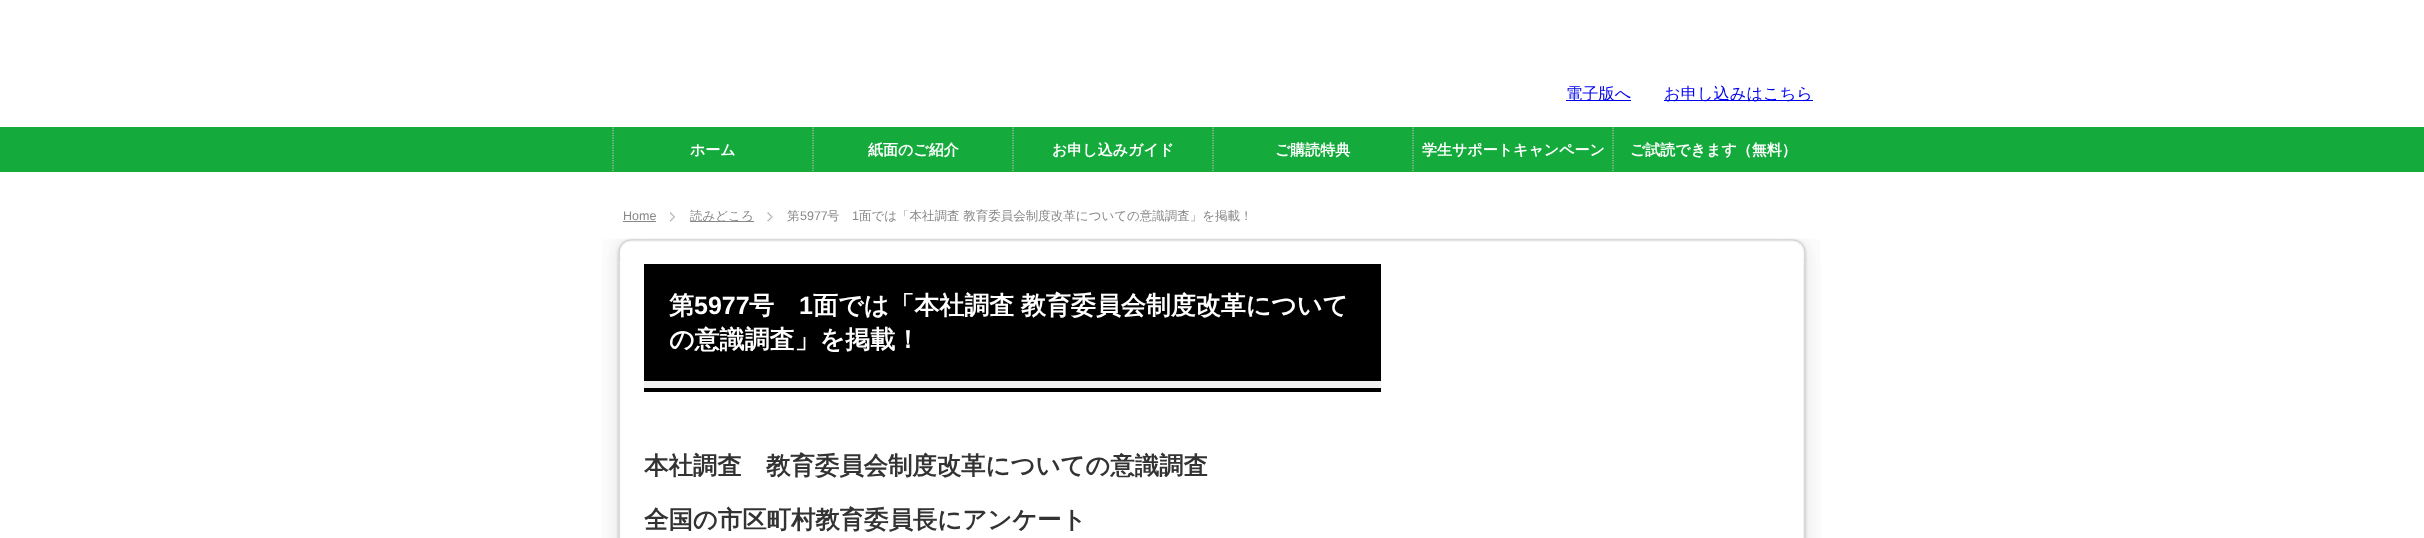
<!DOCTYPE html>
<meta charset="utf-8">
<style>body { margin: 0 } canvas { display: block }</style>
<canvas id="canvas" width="2424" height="538"></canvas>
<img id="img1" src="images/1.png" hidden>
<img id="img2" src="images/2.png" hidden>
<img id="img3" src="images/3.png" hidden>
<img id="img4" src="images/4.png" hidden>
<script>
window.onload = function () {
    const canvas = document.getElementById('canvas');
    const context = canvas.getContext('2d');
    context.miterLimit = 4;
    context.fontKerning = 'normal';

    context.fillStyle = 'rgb(255, 255, 255)';
    context.fillRect(0, 0, 2424, 538);
    context.fillStyle = 'rgb(20, 170, 60)';
    context.fillRect(0, 127, 2424, 45);
    context.fillStyle = 'rgb(0, 0, 238)';
    context.fillRect(1566, 100, 65, 1);
    context.fillRect(1664, 100, 149, 1);
    context.beginPath();
    context.moveTo(613, 127.5);
    context.lineTo(613, 171);
    context.strokeStyle = 'rgb(190, 190, 190)';
    context.lineWidth = 1.2;
    context.setLineDash([1.25, 1.25]);
    context.stroke();
    context.beginPath();
    context.moveTo(813, 127.5);
    context.lineTo(813, 171);
    context.stroke();
    context.beginPath();
    context.moveTo(1013, 127.5);
    context.lineTo(1013, 171);
    context.stroke();
    context.beginPath();
    context.moveTo(1213, 127.5);
    context.lineTo(1213, 171);
    context.stroke();
    context.beginPath();
    context.moveTo(1413, 127.5);
    context.lineTo(1413, 171);
    context.stroke();
    context.beginPath();
    context.moveTo(1613, 127.5);
    context.lineTo(1613, 171);
    context.stroke();
    context.drawImage(document.getElementById('img1'), 670, 212, 5, 10);
    context.fillStyle = 'rgb(136, 136, 136)';
    context.fillRect(623, 221, 33, 1);
    context.drawImage(document.getElementById('img2'), 767, 212, 6, 10);
    context.fillRect(690, 221, 64, 1);
    context.drawImage(document.getElementById('img3'), 602, 238, 1218, 26);
    context.drawImage(document.getElementById('img4'), 601, 263, 1220, 275);
    context.fillStyle = 'rgb(241, 241, 241)';
    context.fillRect(644, 381, 737, 7);
    context.fillStyle = 'rgb(0, 0, 0)';
    context.fillRect(644, 388, 737, 4);
    context.fillRect(644, 264, 737, 117);
    context.font = '500 16.25px WenQuanYi Zen Hei';
    context.fillStyle = 'rgb(0, 0, 238)';
    context.fillText('電子版へ', 1566, 99);
    context.fillText('お申し込みはこちら', 1664, 99);
    context.font = 'bold 15px WenQuanYi Zen Hei';
    context.fillStyle = 'rgb(255, 255, 255)';
    context.fillText('ホーム', 690, 155);
    context.fillText('紙面のご紹介', 868, 155);
    context.fillText('お申し込みガイド', 1052, 155);
    context.fillText('ご購読特典', 1275, 155);
    context.fillText('学生サポートキャンペーン', 1422, 155);
    context.fillText('ご試読できます（無料）', 1630, 155);
    context.font = '12.5px Liberation Sans';
    context.fillStyle = 'rgb(136, 136, 136)';
    context.fillText('Home', 623, 220);
    context.font = '500 12.5px WenQuanYi Zen Hei';
    context.fillText('読みどころ', 690, 220);
    context.fillText('第', 787, 220);
    context.font = '12.5px Liberation Sans';
    context.fillText('5977', 800, 220);
    context.font = '500 12.5px WenQuanYi Zen Hei';
    context.fillText('号', 827, 220);
    context.font = '12.5px Liberation Sans';
    context.fillText('1', 852, 220);
    context.font = '500 12.5px WenQuanYi Zen Hei';
    context.fillText('面では「本社調査 教育委員会制度改革についての意識調査」を掲載！', 859, 220);
    context.font = 'bold 25px WenQuanYi Zen Hei';
    context.fillStyle = 'rgb(255, 255, 255)';
    context.fillText('第', 669, 314);
    context.font = 'bold 25px Liberation Sans';
    context.fillText('5977', 694, 314);
    context.font = 'bold 25px WenQuanYi Zen Hei';
    context.fillText('号', 749, 314);
    context.font = 'bold 25px Liberation Sans';
    context.fillText('1', 799, 314);
    context.wordSpacing = '-1px';
    context.font = 'bold 25px WenQuanYi Zen Hei';
    context.fillText('面では「本社調査 教育委員会制度改革について', 813, 314);
    context.wordSpacing = '0px';
    context.fillText('の意識調査」を掲載！', 669, 348);
    context.font = 'bold 24.4px WenQuanYi Zen Hei';
    context.fillStyle = 'rgb(51, 51, 51)';
    context.fillText('本社調査　教育委員会制度改革についての意識調査', 644, 474);
    context.fillText('全国の市区町村教育委員長にアンケート', 644, 528);
};
</script>
